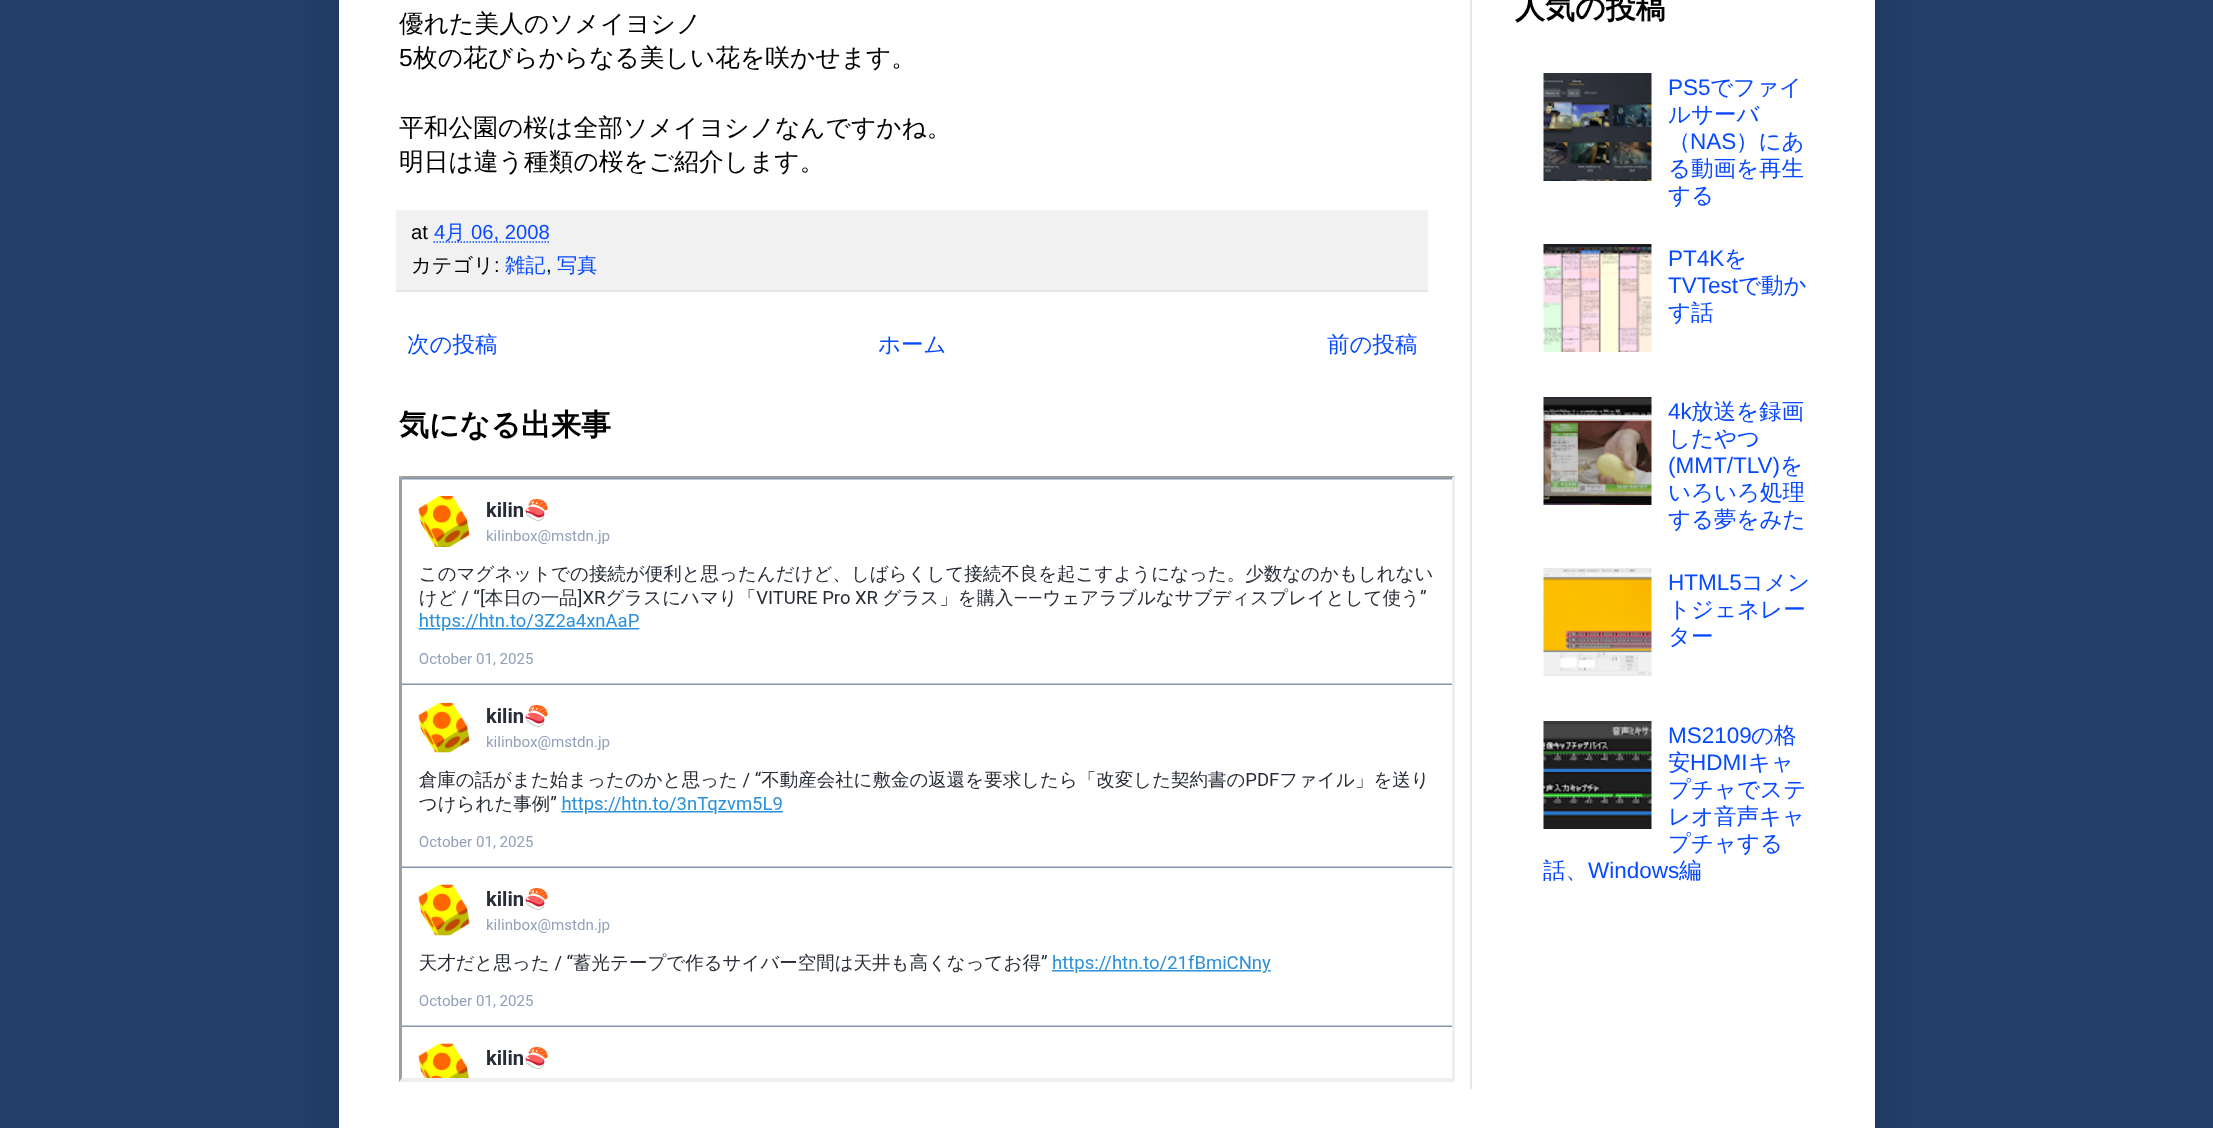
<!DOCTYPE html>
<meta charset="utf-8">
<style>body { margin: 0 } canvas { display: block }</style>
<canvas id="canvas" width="2213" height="1128"></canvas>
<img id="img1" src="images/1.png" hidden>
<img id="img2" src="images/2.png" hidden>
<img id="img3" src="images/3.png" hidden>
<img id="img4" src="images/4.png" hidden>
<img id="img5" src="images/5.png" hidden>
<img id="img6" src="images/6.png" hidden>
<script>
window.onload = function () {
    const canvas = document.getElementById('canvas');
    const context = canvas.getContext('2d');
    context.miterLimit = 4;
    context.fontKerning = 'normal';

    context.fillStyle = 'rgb(35, 63, 107)';
    context.fillRect(0, 0, 2213, 1128);
    context.fillStyle = 'rgba(0, 0, 0, 0.15)';
    context.filter = 'blur(30px)';
    context.beginPath();
    context.rect(339, -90, 1536, 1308);
    context.fill();
    context.filter = 'none';
    context.fillStyle = 'rgb(255, 255, 255)';
    context.fillRect(339, 0, 1536, 1128);
    context.fillStyle = 'rgb(241, 241, 241)';
    context.fillRect(396, 210, 1032, 80);
    context.fillStyle = 'rgb(229, 229, 229)';
    context.fillRect(396, 290, 1032, 2);
    context.beginPath();
    context.moveTo(433.5, 242);
    context.lineTo(549.5, 242);
    context.strokeStyle = 'rgb(7, 73, 255)';
    context.lineWidth = 1.5;
    context.setLineDash([1.5, 1.5]);
    context.stroke();
    context.fillStyle = 'rgb(159, 159, 159)';
    context.beginPath();
    context.moveTo(399, 476);
    context.lineTo(1455, 476);
    context.lineTo(1452, 478);
    context.lineTo(402, 478);
    context.closePath();
    context.fill();
    context.fillStyle = 'rgb(238, 238, 238)';
    context.beginPath();
    context.moveTo(1455, 476);
    context.lineTo(1455, 1082);
    context.lineTo(1452, 1078);
    context.lineTo(1452, 478);
    context.closePath();
    context.fill();
    context.beginPath();
    context.moveTo(1455, 1082);
    context.lineTo(399, 1082);
    context.lineTo(402, 1078);
    context.lineTo(1452, 1078);
    context.closePath();
    context.fill();
    context.fillStyle = 'rgb(159, 159, 159)';
    context.beginPath();
    context.moveTo(399, 1082);
    context.lineTo(399, 476);
    context.lineTo(402, 478);
    context.lineTo(402, 1078);
    context.closePath();
    context.fill();
    context.drawImage(document.getElementById('img1'), 402, 478, 1050, 600);
    context.drawImage(document.getElementById('img2'), 1543, 73, 109, 108);
    context.drawImage(document.getElementById('img3'), 1543, 244, 109, 108);
    context.drawImage(document.getElementById('img4'), 1543, 397, 109, 108);
    context.drawImage(document.getElementById('img5'), 1543, 568, 109, 108);
    context.drawImage(document.getElementById('img6'), 1543, 721, 109, 108);
    context.fillStyle = 'rgb(229, 229, 229)';
    context.fillRect(1470, 0, 2, 1089);
    context.font = '500 24.75px WenQuanYi Zen Hei';
    context.fillStyle = 'rgb(0, 0, 0)';
    context.fillText('優れた美人のソメイヨシノ', 399, 32);
    context.font = '24.75px Liberation Sans';
    context.fillText('5', 399, 66);
    context.font = '500 24.75px WenQuanYi Zen Hei';
    context.fillText('枚の花びらからなる美しい花を咲かせます。', 413, 66);
    context.fillText('平和公園の桜は全部ソメイヨシノなんですかね。', 399, 136);
    context.fillText('明日は違う種類の桜をご紹介します。', 399, 170);
    context.font = '20.25px Liberation Sans';
    context.fillText('at', 411, 239);
    context.fillStyle = 'rgb(7, 73, 255)';
    context.fillText('4', 434, 239);
    context.font = '500 20.25px WenQuanYi Zen Hei';
    context.fillText('月', 445, 239);
    context.font = '20.25px Liberation Sans';
    context.fillText('06, 2008', 471, 239);
    context.font = '500 20.25px WenQuanYi Zen Hei';
    context.fillStyle = 'rgb(0, 0, 0)';
    context.fillText('カテゴリ', 411, 272);
    context.font = '20.25px Liberation Sans';
    context.fillText(':', 494, 272);
    context.font = '500 20.25px WenQuanYi Zen Hei';
    context.fillStyle = 'rgb(7, 73, 255)';
    context.fillText('雑記', 505, 272);
    context.font = '20.25px Liberation Sans';
    context.fillStyle = 'rgb(0, 0, 0)';
    context.fillText(',', 546, 272);
    context.font = '500 20.25px WenQuanYi Zen Hei';
    context.fillStyle = 'rgb(7, 73, 255)';
    context.fillText('写真', 557, 272);
    context.font = '500 22.5px WenQuanYi Zen Hei';
    context.fillText('次の投稿', 407, 352);
    context.fillText('ホーム', 878, 352);
    context.fillText('前の投稿', 1327, 352);
    context.font = 'bold 30px WenQuanYi Zen Hei';
    context.fillStyle = 'rgb(0, 0, 0)';
    context.fillText('気になる出来事', 399, 435);
    context.fillText('人気の投稿', 1515, 18);
    context.font = '22.5px Liberation Sans';
    context.fillStyle = 'rgb(7, 73, 255)';
    context.fillText('PS5', 1668, 95);
    context.font = '500 22.5px WenQuanYi Zen Hei';
    context.fillText('でファイ', 1710, 95);
    context.fillText('ルサーバ', 1668, 122);
    context.fillText('（', 1668, 149);
    context.font = '22.5px Liberation Sans';
    context.fillText('NAS', 1690, 149);
    context.font = '500 22.5px WenQuanYi Zen Hei';
    context.fillText('）にあ', 1736, 149);
    context.fillText('る動画を再生', 1668, 176);
    context.fillText('する', 1668, 203);
    context.font = '22.5px Liberation Sans';
    context.fillText('PT4K', 1668, 266);
    context.font = '500 22.5px WenQuanYi Zen Hei';
    context.fillText('を', 1724, 266);
    context.font = '22.5px Liberation Sans';
    context.fillText('TVTest', 1668, 293);
    context.font = '500 22.5px WenQuanYi Zen Hei';
    context.fillText('で動か', 1738, 293);
    context.fillText('す話', 1668, 320);
    context.font = '22.5px Liberation Sans';
    context.fillText('4k', 1668, 419);
    context.font = '500 22.5px WenQuanYi Zen Hei';
    context.fillText('放送を録画', 1691, 419);
    context.fillText('したやつ', 1668, 446);
    context.font = '22.5px Liberation Sans';
    context.fillText('(MMT/TLV)', 1668, 473);
    context.font = '500 22.5px WenQuanYi Zen Hei';
    context.fillText('を', 1780, 473);
    context.fillText('いろいろ処理', 1668, 500);
    context.fillText('する夢をみた', 1668, 527);
    context.font = '22.5px Liberation Sans';
    context.fillText('HTML5', 1668, 590);
    context.font = '500 22.5px WenQuanYi Zen Hei';
    context.fillText('コメン', 1741, 590);
    context.fillText('トジェネレー', 1668, 617);
    context.fillText('ター', 1668, 644);
    context.font = '22.5px Liberation Sans';
    context.fillText('MS2109', 1668, 743);
    context.font = '500 22.5px WenQuanYi Zen Hei';
    context.fillText('の格', 1751, 743);
    context.fillText('安', 1668, 770);
    context.font = '22.5px Liberation Sans';
    context.fillText('HDMI', 1690, 770);
    context.font = '500 22.5px WenQuanYi Zen Hei';
    context.fillText('キャ', 1748, 770);
    context.fillText('プチャでステ', 1668, 797);
    context.fillText('レオ音声キャ', 1668, 824);
    context.fillText('プチャする', 1668, 851);
    context.fillText('話、', 1543, 878);
    context.font = '22.5px Liberation Sans';
    context.fillText('Windows', 1588, 878);
    context.font = '500 22.5px WenQuanYi Zen Hei';
    context.fillText('編', 1679, 878);
};
</script>
